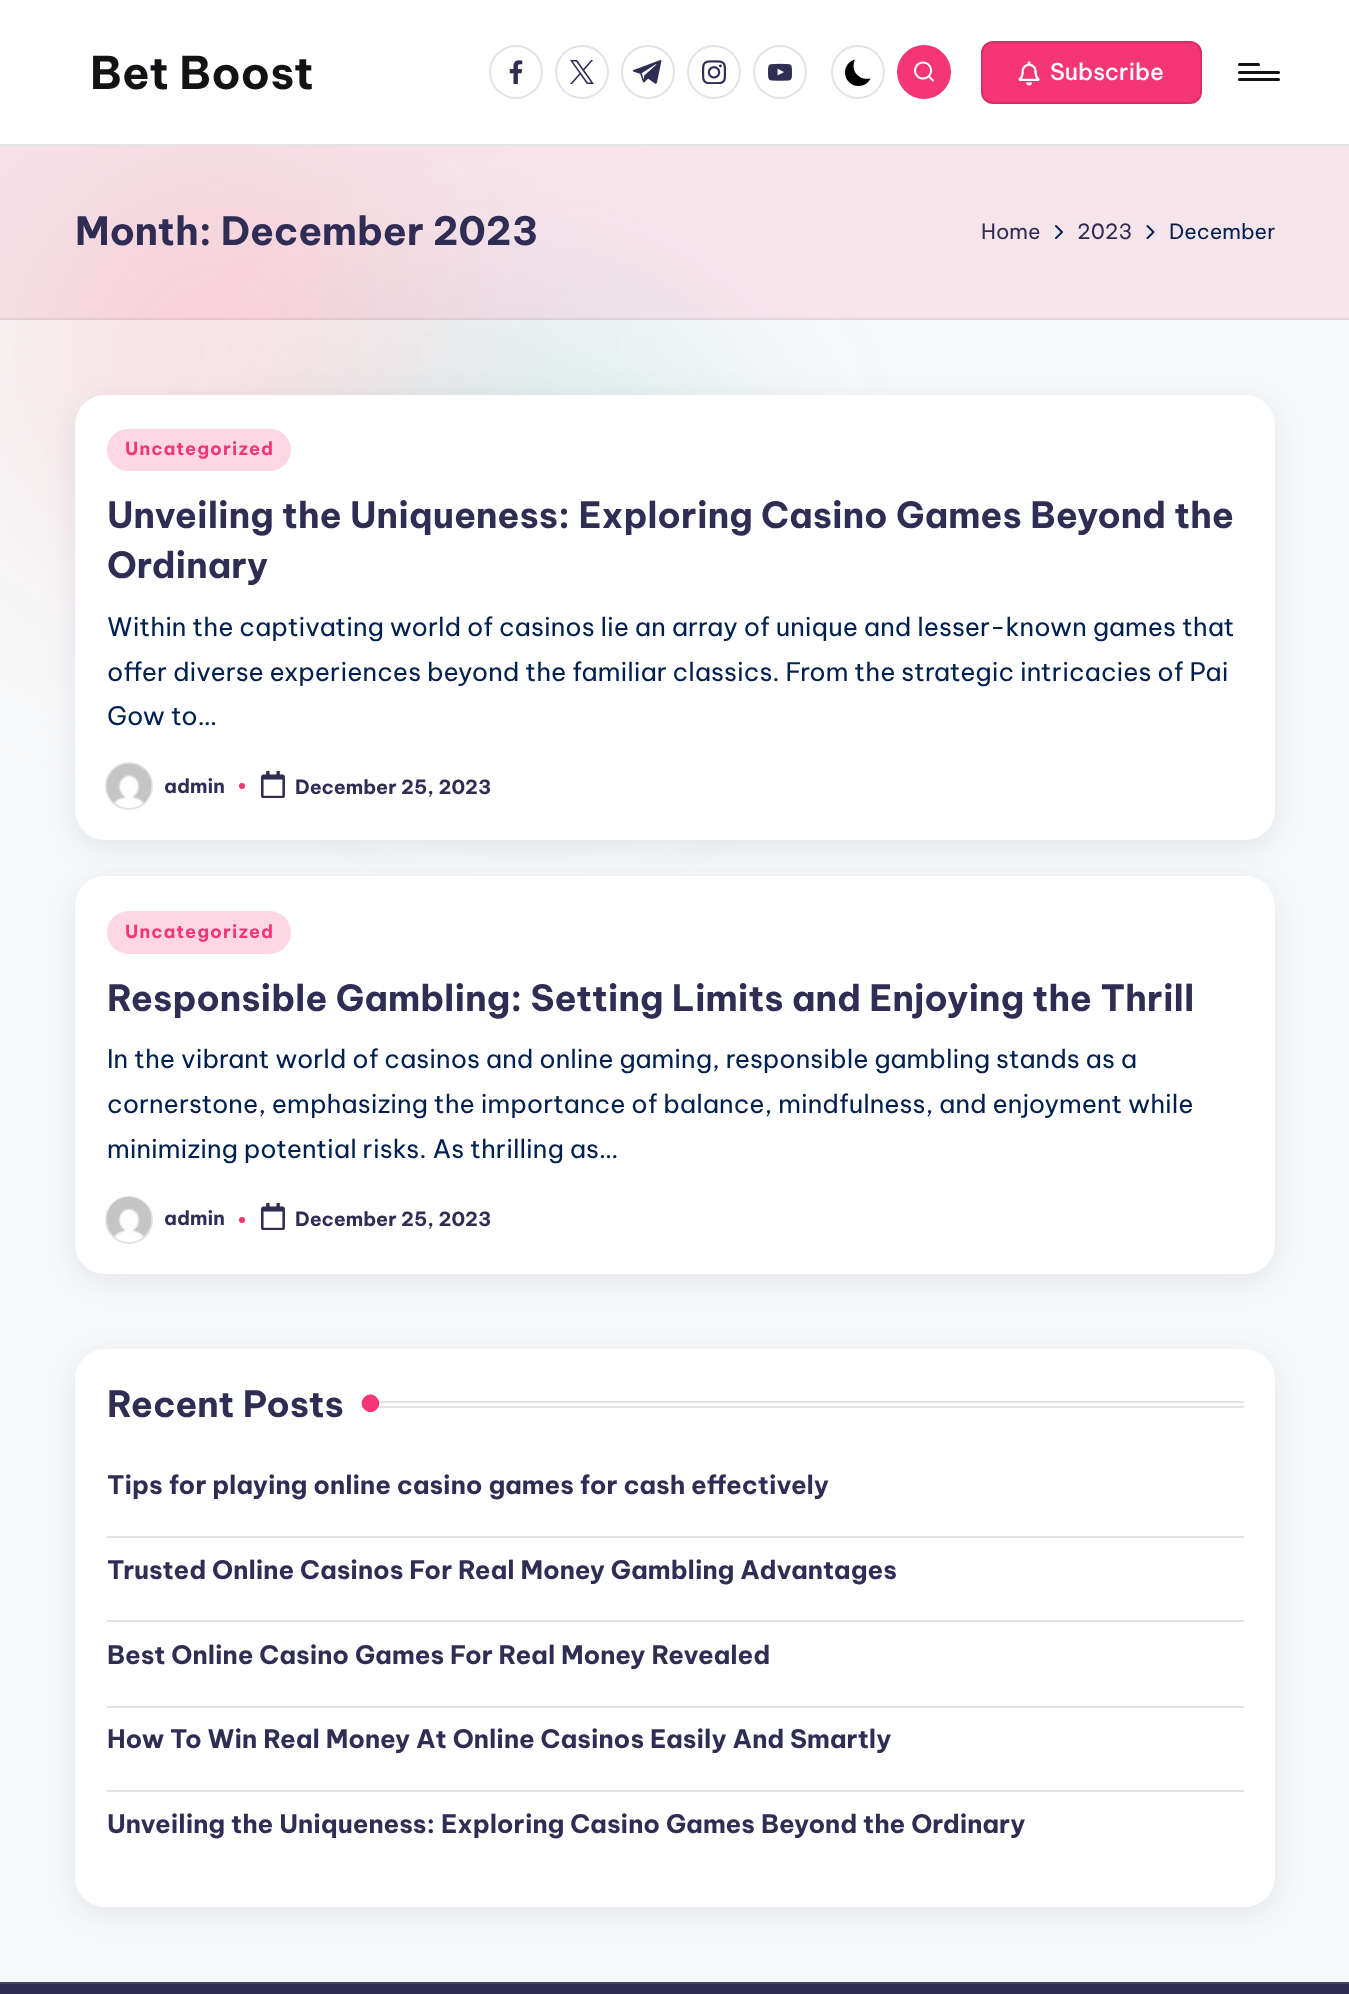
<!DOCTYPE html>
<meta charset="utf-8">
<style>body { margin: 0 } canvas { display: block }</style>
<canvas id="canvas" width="1349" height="1994"></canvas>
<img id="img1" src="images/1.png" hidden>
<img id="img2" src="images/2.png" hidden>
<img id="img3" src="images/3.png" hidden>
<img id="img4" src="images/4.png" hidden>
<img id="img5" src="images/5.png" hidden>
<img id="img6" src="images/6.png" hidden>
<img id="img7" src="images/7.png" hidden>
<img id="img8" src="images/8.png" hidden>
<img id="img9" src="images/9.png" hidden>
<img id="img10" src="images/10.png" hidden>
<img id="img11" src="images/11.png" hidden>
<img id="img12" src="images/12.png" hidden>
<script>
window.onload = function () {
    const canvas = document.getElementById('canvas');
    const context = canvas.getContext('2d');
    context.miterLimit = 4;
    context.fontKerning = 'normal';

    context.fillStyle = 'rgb(247, 248, 249)';
    context.fillRect(0, 0, 1349, 1994);
    context.fillStyle = 'rgb(247, 227, 229)';
    context.filter = 'blur(96px)';
    context.beginPath();
    context.roundRect(0, 135, 432, 432, 216);
    context.fill();
    context.filter = 'none';
    context.fillStyle = 'rgba(4, 134, 139, 0.1)';
    context.filter = 'blur(96px)';
    context.beginPath();
    context.roundRect(312, 300, 432, 432, 216);
    context.fill();
    context.filter = 'none';
    context.fillStyle = 'rgb(255, 255, 255)';
    context.fillRect(0, 0, 1349, 144);
    context.fillStyle = 'rgb(227, 227, 227)';
    context.fillRect(0, 144, 1349, 2);
    context.beginPath();
    context.arc(516, 72, 26, 0, 2 * Math.PI);
    context.strokeStyle = 'rgb(227, 227, 227)';
    context.lineWidth = 2;
    context.stroke();
    context.drawImage(document.getElementById('img1'), 509, 60, 14, 24);
    context.beginPath();
    context.arc(582, 72, 26, 0, 2 * Math.PI);
    context.stroke();
    context.drawImage(document.getElementById('img2'), 570, 60, 24, 24);
    context.beginPath();
    context.arc(648, 72, 26, 0, 2 * Math.PI);
    context.stroke();
    context.drawImage(document.getElementById('img3'), 633, 60, 29, 24);
    context.beginPath();
    context.arc(714, 72, 26, 0, 2 * Math.PI);
    context.stroke();
    context.drawImage(document.getElementById('img4'), 702, 60, 24, 24);
    context.beginPath();
    context.arc(780, 72, 26, 0, 2 * Math.PI);
    context.stroke();
    context.drawImage(document.getElementById('img5'), 768, 63, 25, 18);
    context.beginPath();
    context.arc(858, 72, 26, 0, 2 * Math.PI);
    context.stroke();
    context.fillStyle = 'rgb(0, 0, 0)';
    context.beginPath();
    context.moveTo(870.5, 78.5);
    context.bezierCurveTo(859, 81, 850, 70.5, 855, 59.5);
    context.bezierCurveTo(849, 61, 845, 66.5, 845, 72.5);
    context.bezierCurveTo(845, 80, 851, 86, 858.5, 86);
    context.bezierCurveTo(864, 86, 868.5, 83, 870.5, 78.5);
    context.closePath();
    context.fill();
    context.fillStyle = 'rgb(244, 54, 118)';
    context.beginPath();
    context.arc(924, 72, 27, 0, 2 * Math.PI);
    context.fill();
    context.drawImage(document.getElementById('img6'), 914, 61, 20, 21);
    context.beginPath();
    context.roundRect(981, 41, 221, 63, 12);
    context.fill();
    context.beginPath();
    context.roundRect(982, 42, 219, 61, 11);
    context.strokeStyle = 'rgba(0, 0, 0, 0.12)';
    context.stroke();
    context.drawImage(document.getElementById('img7'), 1018, 61, 22, 25);
    context.fillStyle = 'rgb(19, 19, 21)';
    context.beginPath();
    context.roundRect(1238, 71, 42, 3, 1.5);
    context.fill();
    context.beginPath();
    context.roundRect(1238, 63, 22, 3, 1.5);
    context.fill();
    context.beginPath();
    context.roundRect(1238, 78, 42, 3, 1.5);
    context.fill();
    context.fillStyle = 'rgba(244, 54, 118, 0.1)';
    context.fillRect(0, 146, 1349, 174);
    context.fillStyle = 'rgba(0, 0, 0, 0.06)';
    context.fillRect(0, 318, 1349, 2);
    context.drawImage(document.getElementById('img8'), 1055, 225, 8, 14);
    context.drawImage(document.getElementById('img9'), 1146, 225, 9, 15);
    context.fillStyle = 'rgba(69, 67, 96, 0.1)';
    context.filter = 'blur(15px)';
    context.beginPath();
    context.roundRect(75, 402, 1200, 446, 30);
    context.fill();
    context.filter = 'none';
    context.fillStyle = 'rgb(255, 255, 255)';
    context.beginPath();
    context.roundRect(75, 395, 1200, 445, 30);
    context.fill();
    context.fillStyle = 'rgb(253, 215, 228)';
    context.beginPath();
    context.roundRect(107, 429, 184, 42, 21);
    context.fill();
    context.drawImage(document.getElementById('img10'), 106, 763, 46, 41);
    context.beginPath();
    context.arc(129, 786, 23, 0, 2 * Math.PI);
    context.strokeStyle = 'rgba(185, 185, 185, 0.4)';
    context.stroke();
    context.fillStyle = 'rgb(244, 54, 118)';
    context.beginPath();
    context.arc(242, 786, 3, 0, 2 * Math.PI);
    context.fill();
    context.drawImage(document.getElementById('img11'), 261, 771, 24, 27);
    context.fillStyle = 'rgba(69, 67, 96, 0.1)';
    context.filter = 'blur(15px)';
    context.beginPath();
    context.roundRect(75, 884, 1200, 397, 30);
    context.fill();
    context.filter = 'none';
    context.fillStyle = 'rgb(255, 255, 255)';
    context.beginPath();
    context.roundRect(75, 876, 1200, 398, 30);
    context.fill();
    context.fillStyle = 'rgb(253, 215, 228)';
    context.beginPath();
    context.roundRect(107, 911, 184, 43, 21.5);
    context.fill();
    context.drawImage(document.getElementById('img12'), 106, 1197, 46, 40);
    context.beginPath();
    context.arc(129, 1220, 23, 0, 2 * Math.PI);
    context.stroke();
    context.fillStyle = 'rgb(244, 54, 118)';
    context.beginPath();
    context.arc(242, 1220, 3, 0, 2 * Math.PI);
    context.fill();
    context.drawImage(document.getElementById('img11'), 261, 1203, 24, 27);
    context.fillStyle = 'rgba(69, 67, 96, 0.1)';
    context.filter = 'blur(15px)';
    context.beginPath();
    context.roundRect(75, 1356, 1200, 558, 30);
    context.fill();
    context.filter = 'none';
    context.fillStyle = 'rgb(255, 255, 255)';
    context.beginPath();
    context.roundRect(75, 1349, 1200, 558, 30);
    context.fill();
    context.fillStyle = 'rgb(227, 227, 227)';
    context.fillRect(378, 1401, 866, 2);
    context.fillRect(362, 1406, 882, 2);
    context.fillStyle = 'rgb(244, 54, 118)';
    context.beginPath();
    context.moveTo(364.5, 1397);
    context.bezierCurveTo(372.5, 1389, 385, 1401.5, 376.5, 1409.5);
    context.bezierCurveTo(368.5, 1417.5, 356, 1405, 364.5, 1397);
    context.closePath();
    context.fill();
    context.fillStyle = 'rgb(227, 227, 227)';
    context.fillRect(107, 1536, 1137, 2);
    context.fillRect(107, 1620, 1137, 2);
    context.fillRect(107, 1706, 1137, 2);
    context.fillRect(107, 1790, 1137, 2);
    context.fillStyle = 'rgb(48, 45, 85)';
    context.fillRect(0, 1984, 1349, 10);
    context.fillStyle = 'rgb(69, 66, 102)';
    context.fillRect(0, 1982, 1349, 2);
    context.font = 'bold 45px Be Vietnam Pro';
    context.fillStyle = 'rgb(19, 19, 21)';
    context.fillText('Bet Boost', 90, 89);
    context.font = '500 23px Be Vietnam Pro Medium';
    context.fillStyle = 'rgb(255, 255, 255)';
    context.fillText('Subscribe', 1050, 80);
    context.font = 'bold 39px Be Vietnam Pro';
    context.fillStyle = 'rgb(48, 45, 85)';
    context.fillText('Month: December 2023', 75, 245);
    context.font = '21px Be Vietnam Pro';
    context.fillText('Home', 981, 239);
    context.fillText('2023', 1077, 239);
    context.fillStyle = 'rgb(0, 32, 80)';
    context.fillText('December', 1169, 239);
    context.letterSpacing = '1.1px';
    context.font = 'bold 18px Be Vietnam Pro';
    context.fillStyle = 'rgb(244, 54, 118)';
    context.fillText('Uncategorized', 125, 455);
    context.letterSpacing = '0px';
    context.font = 'bold 36px Be Vietnam Pro';
    context.fillStyle = 'rgb(48, 45, 85)';
    context.fillText('Unveiling the Uniqueness: Exploring Casino Games Beyond the', 107, 528);
    context.fillText('Ordinary', 107, 578);
    context.font = '25.5px Be Vietnam Pro';
    context.fillStyle = 'rgb(0, 32, 80)';
    context.fillText('Within the captivating world of casinos lie an array of unique and lesser-known games that', 107, 636);
    context.fillText('offer diverse experiences beyond the familiar classics. From the strategic intricacies of Pai', 107, 681);
    context.fillText('Gow to…', 107, 725);
    context.font = 'bold 19.5px Be Vietnam Pro';
    context.fillStyle = 'rgb(48, 45, 85)';
    context.fillText('admin', 164, 793);
    context.fillText('December 25, 2023', 295, 794);
    context.letterSpacing = '1.1px';
    context.font = 'bold 18px Be Vietnam Pro';
    context.fillStyle = 'rgb(244, 54, 118)';
    context.fillText('Uncategorized', 125, 938);
    context.letterSpacing = '0px';
    context.font = 'bold 36px Be Vietnam Pro';
    context.fillStyle = 'rgb(48, 45, 85)';
    context.fillText('Responsible Gambling: Setting Limits and Enjoying the Thrill', 107, 1011);
    context.font = '25.5px Be Vietnam Pro';
    context.fillStyle = 'rgb(0, 32, 80)';
    context.fillText('In the vibrant world of casinos and online gaming, responsible gambling stands as a', 107, 1068);
    context.fillText('cornerstone, emphasizing the importance of balance, mindfulness, and enjoyment while', 107, 1113);
    context.fillText('minimizing potential risks. As thrilling as…', 107, 1158);
    context.font = 'bold 19.5px Be Vietnam Pro';
    context.fillStyle = 'rgb(48, 45, 85)';
    context.fillText('admin', 164, 1225);
    context.fillText('December 25, 2023', 295, 1226);
    context.font = 'bold 36px Be Vietnam Pro';
    context.fillText('Recent Posts', 107, 1417);
    context.font = 'bold 25.5px Be Vietnam Pro';
    context.fillText('Tips for playing online casino games for cash effectively', 107, 1494);
    context.fillText('Trusted Online Casinos For Real Money Gambling Advantages', 107, 1579);
    context.fillText('Best Online Casino Games For Real Money Revealed', 107, 1664);
    context.fillText('How To Win Real Money At Online Casinos Easily And Smartly', 107, 1748);
    context.fillText('Unveiling the Uniqueness: Exploring Casino Games Beyond the Ordinary', 107, 1833);
};
</script>
